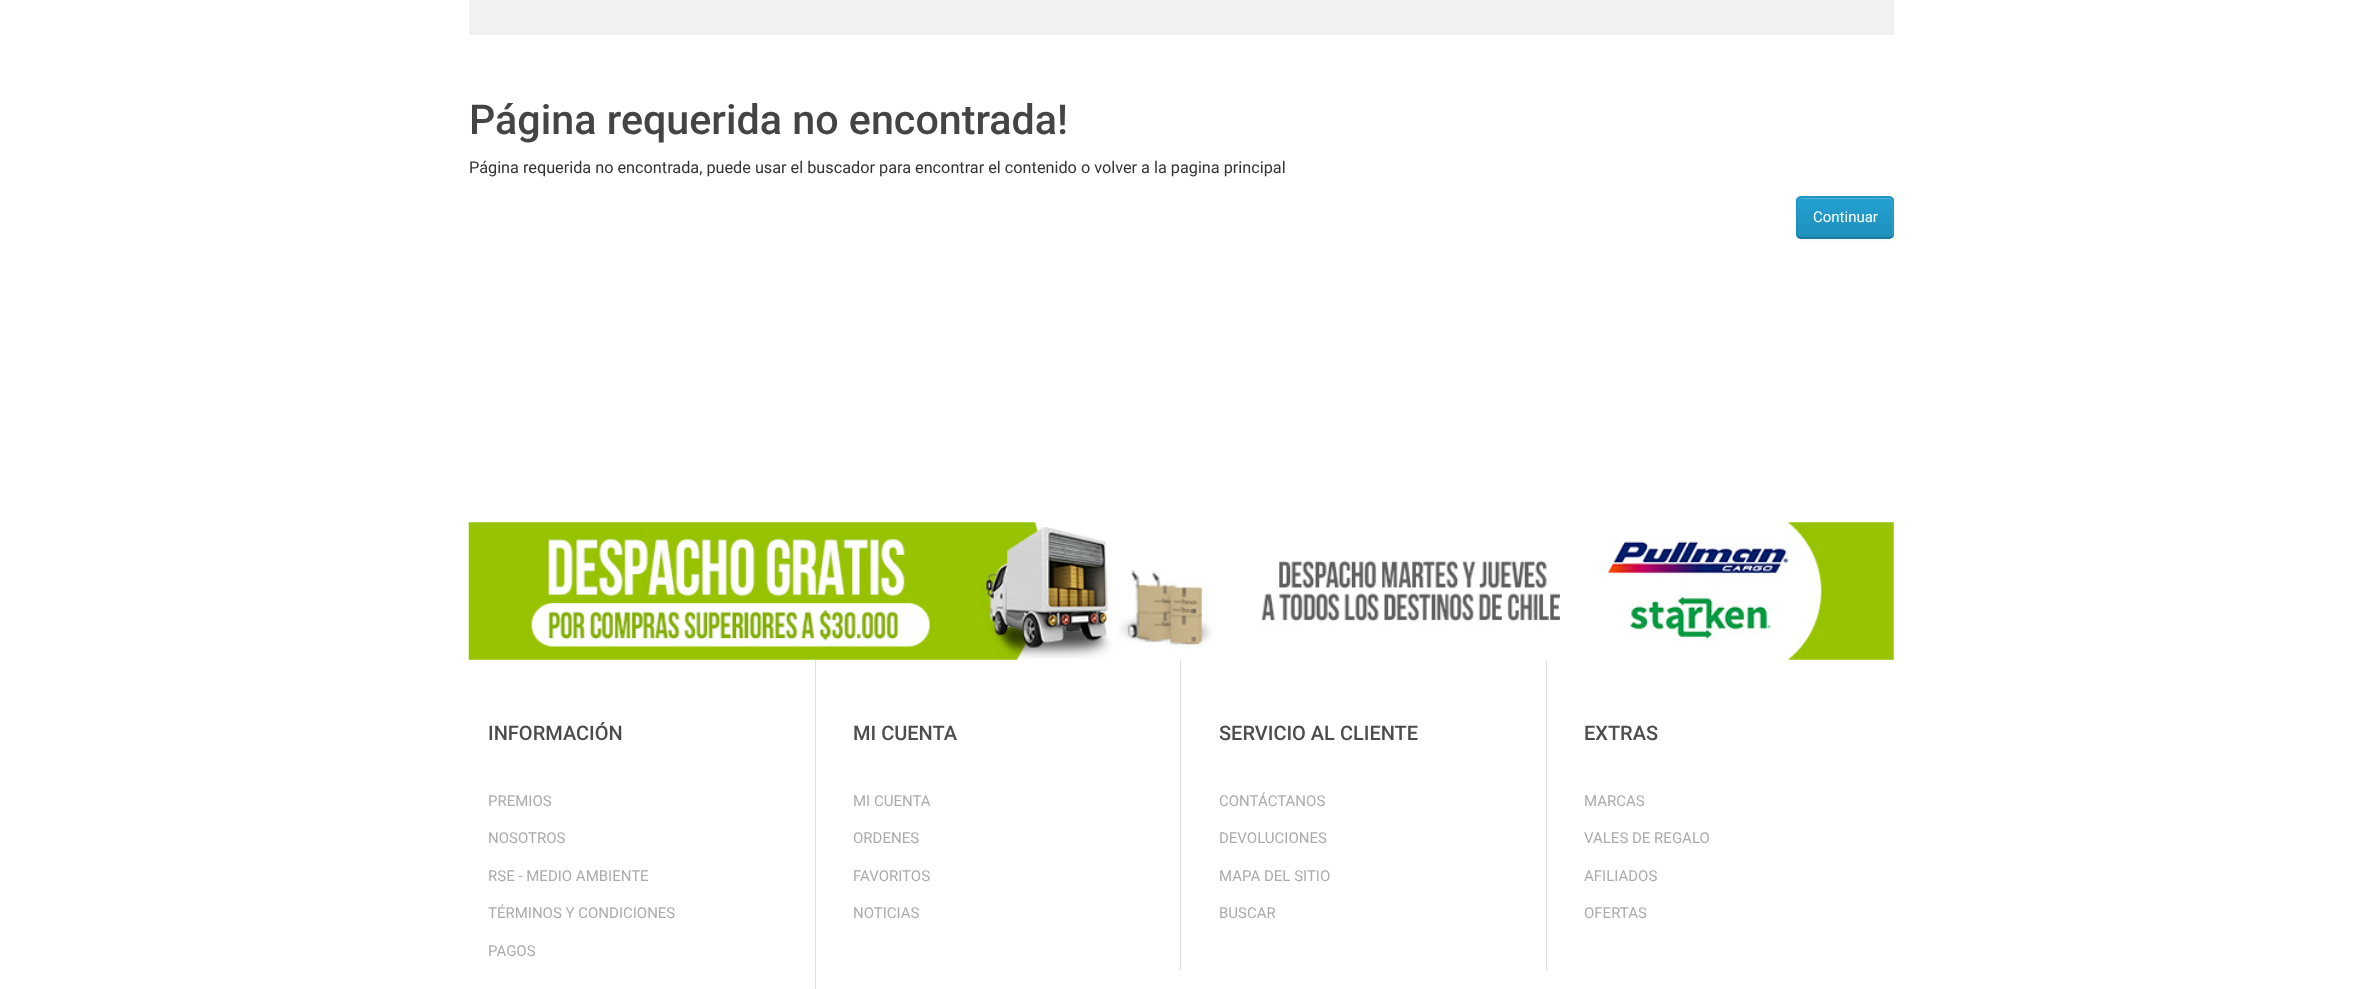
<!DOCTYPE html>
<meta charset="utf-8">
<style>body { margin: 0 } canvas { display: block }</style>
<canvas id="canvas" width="2362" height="989"></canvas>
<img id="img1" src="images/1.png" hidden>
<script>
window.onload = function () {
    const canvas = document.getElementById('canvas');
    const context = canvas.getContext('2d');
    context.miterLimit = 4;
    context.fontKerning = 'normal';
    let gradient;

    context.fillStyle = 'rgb(255, 255, 255)';
    context.fillRect(0, 0, 2362, 989);
    context.fillStyle = 'rgb(241, 241, 241)';
    context.fillRect(469, 0, 1425, 35);
    context.fillStyle = 'rgba(0, 0, 0, 0.05)';
    context.filter = 'blur(1px)';
    context.beginPath();
    context.roundRect(1796, 198, 98, 42, 5);
    context.fill();
    context.filter = 'none';
    context.fillStyle = 'rgb(34, 154, 200)';
    context.beginPath();
    context.roundRect(1796, 196, 98, 43, 5);
    context.fill();
    context.save();
    context.beginPath();
    context.roundRect(1796, 196, 98, 43, 5);
    context.clip();
    gradient = context.createLinearGradient(1845, 198, 1845, 238);
    gradient.addColorStop(0, 'rgb(35, 161, 209)');
    gradient.addColorStop(1, 'rgb(31, 144, 187)');
    context.fillStyle = gradient;
    context.fillRect(1796, 198, 98, 40);
    context.restore();
    context.fillStyle = 'rgba(255, 255, 255, 0.2)';
    context.beginPath();
    context.moveTo(1801, 199);
    context.lineTo(1889, 199);
    context.bezierCurveTo(1893, 199, 1892, 205, 1892, 208);
    context.lineTo(1892, 237);
    context.bezierCurveTo(1892, 236, 1893, 235, 1893, 234);
    context.lineTo(1893, 202);
    context.bezierCurveTo(1893, 200, 1891, 198, 1889, 198);
    context.lineTo(1802, 198);
    context.bezierCurveTo(1801, 198, 1799, 199, 1799, 200);
    context.closePath();
    context.fill();
    context.beginPath();
    context.moveTo(1892, 237);
    context.bezierCurveTo(1891, 237.5, 1890, 238, 1889, 238);
    context.lineTo(1801, 238);
    context.bezierCurveTo(1800, 238, 1799, 237.5, 1798, 237);
    context.strokeStyle = 'rgb(20, 94, 122)';
    context.lineWidth = 1.2;
    context.stroke();
    context.beginPath();
    context.moveTo(1798, 237);
    context.bezierCurveTo(1796, 234.5, 1797, 230.5, 1797, 228.5);
    context.lineTo(1797, 217.5);
    context.bezierCurveTo(1797, 194.5, 1793, 197, 1816, 197);
    context.lineTo(1874, 197);
    context.bezierCurveTo(1897, 197, 1893, 194.5, 1893, 217.5);
    context.lineTo(1893, 228.5);
    context.bezierCurveTo(1893, 230.5, 1894, 234.5, 1892, 237);
    context.strokeStyle = 'rgb(31, 144, 187)';
    context.stroke();
    context.drawImage(document.getElementById('img1'), 468, 522, 1426, 138);
    context.fillStyle = 'rgb(221, 221, 221)';
    context.fillRect(815, 660, 1, 329);
    context.fillRect(1180, 660, 1, 310);
    context.fillRect(1546, 660, 1, 310);
    context.font = '500 41.25px Roboto';
    context.fillStyle = 'rgb(68, 68, 68)';
    context.fillText('Página requerida no encontrada!', 469, 134);
    context.font = '16.25px Roboto';
    context.fillStyle = 'rgb(51, 51, 51)';
    context.fillText('Página requerida no encontrada, puede usar el buscador para encontrar el contenido o volver a la pagina principal', 469, 173);
    context.font = '15px Roboto';
    context.fillStyle = 'rgb(255, 255, 255)';
    context.fillText('Continuar', 1813, 222);
    context.font = '500 20px Roboto';
    context.fillStyle = 'rgb(76, 76, 76)';
    context.fillText('INFORMACIÓN', 488, 740);
    context.font = '15px Roboto';
    context.fillStyle = 'rgb(171, 171, 171)';
    context.fillText('PREMIOS', 488, 806);
    context.fillText('NOSOTROS', 488, 843);
    context.fillText('RSE - MEDIO AMBIENTE', 488, 881);
    context.fillText('TÉRMINOS Y CONDICIONES', 488, 918);
    context.fillText('PAGOS', 488, 956);
    context.font = '500 20px Roboto';
    context.fillStyle = 'rgb(76, 76, 76)';
    context.fillText('MI CUENTA', 853, 740);
    context.font = '15px Roboto';
    context.fillStyle = 'rgb(171, 171, 171)';
    context.fillText('MI CUENTA', 853, 806);
    context.fillText('ORDENES', 853, 843);
    context.fillText('FAVORITOS', 853, 881);
    context.fillText('NOTICIAS', 853, 918);
    context.font = '500 20px Roboto';
    context.fillStyle = 'rgb(76, 76, 76)';
    context.fillText('SERVICIO AL CLIENTE', 1219, 740);
    context.font = '15px Roboto';
    context.fillStyle = 'rgb(171, 171, 171)';
    context.fillText('CONTÁCTANOS', 1219, 806);
    context.fillText('DEVOLUCIONES', 1219, 843);
    context.fillText('MAPA DEL SITIO', 1219, 881);
    context.fillText('BUSCAR', 1219, 918);
    context.font = '500 20px Roboto';
    context.fillStyle = 'rgb(76, 76, 76)';
    context.fillText('EXTRAS', 1584, 740);
    context.font = '15px Roboto';
    context.fillStyle = 'rgb(171, 171, 171)';
    context.fillText('MARCAS', 1584, 806);
    context.fillText('VALES DE REGALO', 1584, 843);
    context.fillText('AFILIADOS', 1584, 881);
    context.fillText('OFERTAS', 1584, 918);
};
</script>
